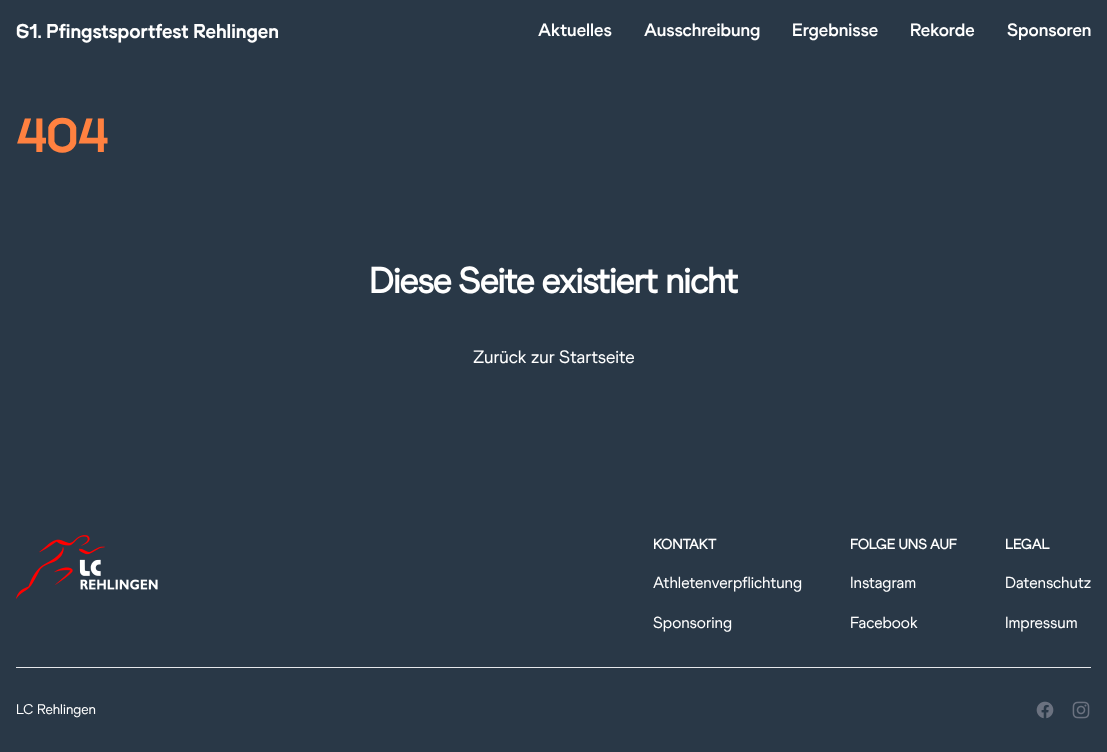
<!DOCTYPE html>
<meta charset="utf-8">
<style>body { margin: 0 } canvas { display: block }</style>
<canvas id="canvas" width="1107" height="752"></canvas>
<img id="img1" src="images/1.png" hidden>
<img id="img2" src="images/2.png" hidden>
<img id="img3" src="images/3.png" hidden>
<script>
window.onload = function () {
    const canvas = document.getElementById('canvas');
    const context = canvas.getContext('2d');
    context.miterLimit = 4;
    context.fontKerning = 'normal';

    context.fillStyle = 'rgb(41, 56, 71)';
    context.fillRect(0, 0, 1107, 752);
    context.drawImage(document.getElementById('img1'), 16, 535, 142, 64);
    context.fillStyle = 'rgb(229, 231, 235)';
    context.fillRect(16, 667, 1075, 1);
    context.drawImage(document.getElementById('img2'), 1036, 701, 18, 18);
    context.drawImage(document.getElementById('img3'), 1072, 701, 18, 18);
    context.font = '800 20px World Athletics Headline';
    context.fillStyle = 'rgb(255, 255, 255)';
    context.fillText('61. Pfingstsportfest Rehlingen', 16, 38);
    context.font = 'bold 18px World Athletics';
    context.fillText('Aktuelles', 538, 36);
    context.fillText('Ausschreibung', 644, 36);
    context.fillText('Ergebnisse', 792, 36);
    context.fillText('Rekorde', 910, 36);
    context.fillText('Sponsoren', 1007, 36);
    context.letterSpacing = '-1px';
    context.font = '800 48px World Athletics Headline';
    context.fillStyle = 'rgb(255, 129, 64)';
    context.fillText('404', 16, 152);
    context.letterSpacing = '-0.9px';
    context.font = 'bold 36px "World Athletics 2"';
    context.fillStyle = 'rgb(255, 255, 255)';
    context.fillText('Diese Seite existiert nicht', 369, 293);
    context.letterSpacing = '0px';
    context.font = '18px World Athletics';
    context.fillText('Zurück zur Startseite', 473, 363);
    context.font = 'bold 14px "World Athletics 2"';
    context.fillText('KONTAKT', 653, 549);
    context.font = '16px World Athletics';
    context.fillText('Athletenverpflichtung', 653, 588);
    context.fillText('Sponsoring', 653, 628);
    context.font = 'bold 14px "World Athletics 2"';
    context.fillText('FOLGE UNS AUF', 850, 549);
    context.font = '16px World Athletics';
    context.fillText('Instagram', 850, 588);
    context.fillText('Facebook', 850, 628);
    context.font = 'bold 14px "World Athletics 2"';
    context.fillText('LEGAL', 1005, 549);
    context.font = '16px World Athletics';
    context.fillText('Datenschutz', 1005, 588);
    context.fillText('Impressum', 1005, 628);
    context.font = '14px World Athletics';
    context.fillText('LC Rehlingen', 16, 714);
};
</script>
